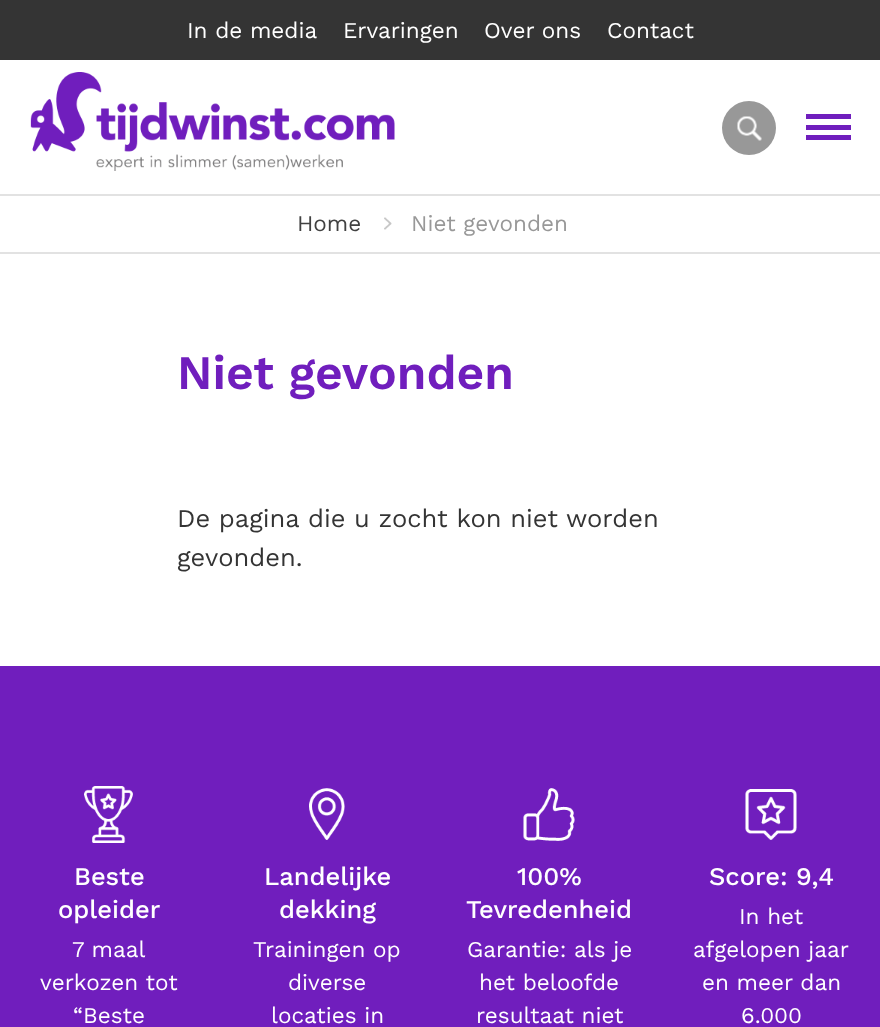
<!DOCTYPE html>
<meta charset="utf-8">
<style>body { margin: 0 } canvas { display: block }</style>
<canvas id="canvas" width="880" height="1027"></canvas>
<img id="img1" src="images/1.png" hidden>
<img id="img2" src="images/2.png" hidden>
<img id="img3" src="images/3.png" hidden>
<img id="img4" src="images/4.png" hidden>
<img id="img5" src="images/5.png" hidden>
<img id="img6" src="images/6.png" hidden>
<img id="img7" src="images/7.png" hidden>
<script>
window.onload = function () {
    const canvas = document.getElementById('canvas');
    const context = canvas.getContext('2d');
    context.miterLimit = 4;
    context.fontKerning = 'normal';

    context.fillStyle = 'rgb(255, 255, 255)';
    context.fillRect(0, 0, 880, 1027);
    context.fillStyle = 'rgb(52, 52, 52)';
    context.fillRect(0, 0, 880, 60);
    context.fillStyle = 'rgb(226, 226, 226)';
    context.fillRect(0, 194, 880, 2);
    context.drawImage(document.getElementById('img1'), 30, 72, 365, 99);
    context.fillStyle = 'rgb(152, 152, 152)';
    context.beginPath();
    context.arc(749, 128, 27, 0, 2 * Math.PI);
    context.fill();
    context.drawImage(document.getElementById('img2'), 737, 116, 25, 25);
    context.fillStyle = 'rgb(112, 30, 189)';
    context.fillRect(806, 114, 45, 5);
    context.fillRect(806, 125, 45, 5);
    context.fillRect(806, 135, 45, 5);
    context.fillStyle = 'rgb(226, 226, 226)';
    context.fillRect(0, 252, 880, 2);
    context.drawImage(document.getElementById('img3'), 384, 217, 8, 13);
    context.fillStyle = 'rgb(112, 30, 189)';
    context.fillRect(0, 666, 880, 361);
    context.drawImage(document.getElementById('img4'), 84, 786, 49, 57);
    context.drawImage(document.getElementById('img5'), 309, 788, 36, 52);
    context.drawImage(document.getElementById('img6'), 523, 788, 52, 53);
    context.drawImage(document.getElementById('img7'), 745, 789, 52, 51);
    context.font = '22.5px Work Sans';
    context.fillStyle = 'rgb(255, 255, 255)';
    context.fillText('In de media', 187, 38);
    context.fillText('Ervaringen', 343, 38);
    context.fillText('Over ons', 484, 38);
    context.fillText('Contact', 607, 38);
    context.fillStyle = 'rgb(65, 65, 65)';
    context.fillText('Home', 297, 231);
    context.fillStyle = 'rgb(152, 152, 152)';
    context.fillText('Niet gevonden', 411, 231);
    context.font = '600 48px Work Sans';
    context.fillStyle = 'rgb(112, 30, 189)';
    context.fillText('Niet gevonden', 177, 389);
    context.font = '25.5px Work Sans';
    context.fillStyle = 'rgb(52, 52, 52)';
    context.fillText('De pagina die u zocht kon niet worden', 177, 527);
    context.fillText('gevonden.', 177, 566);
    context.font = '500 25.5px Work Sans';
    context.fillStyle = 'rgb(255, 255, 255)';
    context.fillText('Beste', 74, 885);
    context.fillText('opleider', 58, 918);
    context.font = '22.5px Work Sans';
    context.fillText('7 maal', 72, 957);
    context.fillText('verkozen tot', 40, 990);
    context.fillText('“Beste', 73, 1023);
    context.font = '500 25.5px Work Sans';
    context.fillText('Landelijke', 264, 885);
    context.fillText('dekking', 279, 918);
    context.font = '22.5px Work Sans';
    context.fillText('Trainingen op', 253, 957);
    context.fillText('diverse', 288, 990);
    context.fillText('locaties in', 271, 1023);
    context.font = '500 25.5px Work Sans';
    context.fillText('100%', 517, 885);
    context.fillText('Tevredenheid', 466, 918);
    context.font = '22.5px Work Sans';
    context.fillText('Garantie: als je', 467, 957);
    context.fillText('het beloofde', 479, 990);
    context.fillText('resultaat niet', 476, 1023);
    context.font = '500 25.5px Work Sans';
    context.fillText('Score: 9,4', 709, 885);
    context.font = '22.5px Work Sans';
    context.fillText('In het', 739, 924);
    context.fillText('afgelopen jaar', 693, 957);
    context.fillText('en meer dan', 702, 990);
    context.fillText('6.000', 741, 1023);
};
</script>
